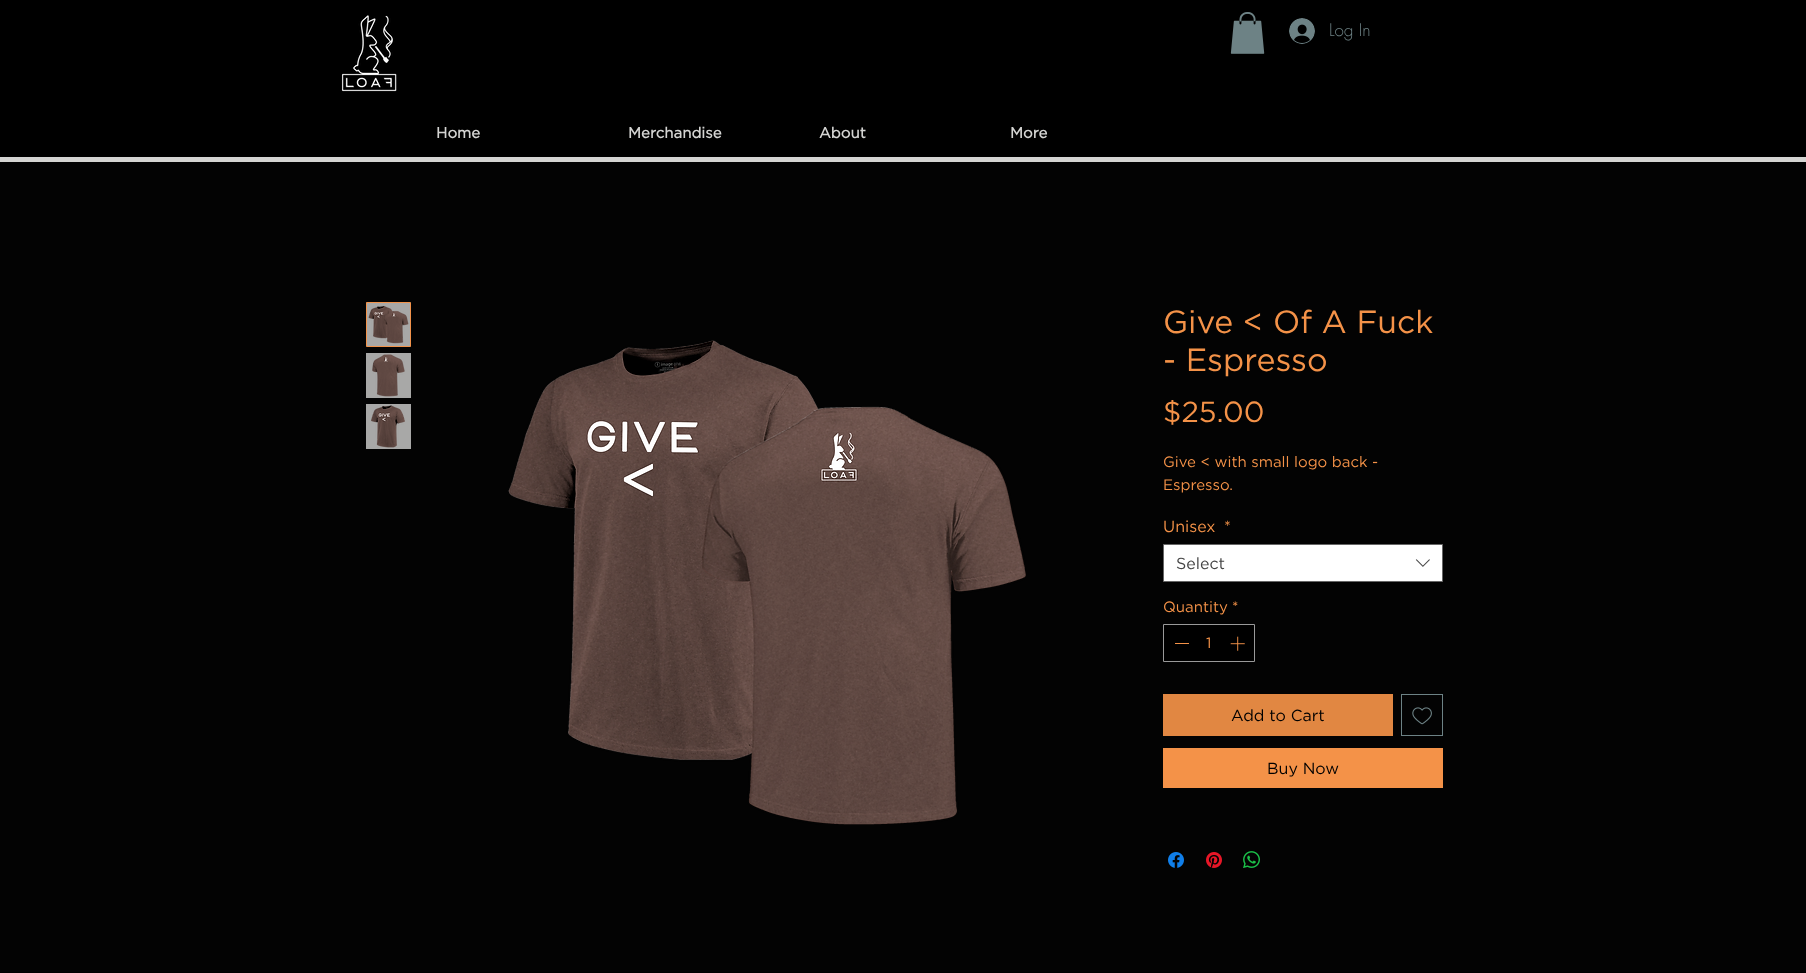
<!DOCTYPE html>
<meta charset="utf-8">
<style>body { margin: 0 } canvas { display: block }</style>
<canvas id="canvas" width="1806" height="973"></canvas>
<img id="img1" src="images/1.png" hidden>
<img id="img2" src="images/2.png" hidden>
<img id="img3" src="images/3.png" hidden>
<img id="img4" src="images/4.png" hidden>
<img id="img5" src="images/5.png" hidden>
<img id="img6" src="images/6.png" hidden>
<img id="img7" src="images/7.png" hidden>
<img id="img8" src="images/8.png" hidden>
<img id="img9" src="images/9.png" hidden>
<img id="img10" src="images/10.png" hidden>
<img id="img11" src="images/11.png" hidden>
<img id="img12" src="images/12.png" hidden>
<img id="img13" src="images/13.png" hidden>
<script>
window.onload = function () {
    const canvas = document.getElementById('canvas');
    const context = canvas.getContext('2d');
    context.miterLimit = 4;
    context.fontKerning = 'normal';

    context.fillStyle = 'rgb(3, 3, 3)';
    context.fillRect(0, 0, 1806, 973);
    context.fillStyle = 'rgb(0, 0, 0)';
    context.fillRect(0, 0, 1806, 157);
    context.fillStyle = 'rgb(212, 212, 210)';
    context.fillRect(0, 157, 1806, 5);
    context.drawImage(document.getElementById('img1'), 341, 15, 56, 77);
    context.drawImage(document.getElementById('img2'), 1230, 12, 35, 42);
    context.drawImage(document.getElementById('img3'), 1289, 18, 26, 26);
    context.fillStyle = 'rgb(168, 168, 167)';
    context.beginPath();
    context.rect(366.5, 302.5, 44, 44);
    context.fill();
    context.strokeStyle = 'rgb(242, 147, 75)';
    context.stroke();
    context.drawImage(document.getElementById('img4'), 368, 306, 41, 38);
    context.fillRect(366, 353, 45, 45);
    context.drawImage(document.getElementById('img5'), 372, 354, 33, 43);
    context.fillRect(366, 404, 45, 45);
    context.drawImage(document.getElementById('img6'), 371, 405, 34, 43);
    context.drawImage(document.getElementById('img7'), 508, 340, 518, 485);
    context.fillStyle = 'rgb(255, 255, 255)';
    context.beginPath();
    context.rect(1163.5, 544.5, 279, 37);
    context.fill();
    context.strokeStyle = 'rgb(102, 102, 102)';
    context.stroke();
    context.drawImage(document.getElementById('img8'), 1415, 559, 15, 8);
    context.fillStyle = 'rgb(0, 0, 0)';
    context.beginPath();
    context.rect(1163.5, 624.5, 91, 37);
    context.fill();
    context.strokeStyle = 'rgb(153, 153, 153)';
    context.stroke();
    context.fillStyle = 'rgb(244, 146, 72)';
    context.fillRect(1175, 643, 14, 1);
    context.drawImage(document.getElementById('img9'), 1230, 636, 15, 15);
    context.fillStyle = 'rgb(225, 135, 66)';
    context.fillRect(1163, 694, 230, 42);
    context.strokeStyle = 'rgb(109, 130, 133)';
    context.strokeRect(1401.5, 694.5, 41, 41);
    context.drawImage(document.getElementById('img10'), 1412, 707, 20, 18);
    context.fillStyle = 'rgb(244, 146, 72)';
    context.fillRect(1163, 748, 280, 40);
    context.drawImage(document.getElementById('img11'), 1168, 852, 16, 16);
    context.drawImage(document.getElementById('img12'), 1206, 852, 16, 16);
    context.drawImage(document.getElementById('img13'), 1243, 851, 17, 17);
    context.fillStyle = 'rgb(0, 0, 0)';
    context.fillRect(0, 972, 1806, 1);
    context.font = '300 17px futura';
    context.fillStyle = 'rgb(109, 130, 133)';
    context.fillText('Log In', 1329, 36);
    context.font = 'bold 15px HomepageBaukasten';
    context.fillStyle = 'rgb(212, 212, 210)';
    context.fillText('Home', 436, 138);
    context.fillText('Merchandise', 628, 138);
    context.fillText('About', 819, 138);
    context.fillText('More', 1010, 138);
    context.font = '32px HomepageBaukasten';
    context.fillStyle = 'rgb(244, 146, 72)';
    context.fillText('Give < Of A Fuck', 1163, 333);
    context.fillText('- Espresso', 1163, 371);
    context.font = '29px HomepageBaukasten';
    context.fillText('$25.00', 1163, 422);
    context.font = '15px HomepageBaukasten';
    context.fillText('Give < with small logo back -', 1163, 467);
    context.fillText('Espresso.', 1163, 490);
    context.font = '16px HomepageBaukasten';
    context.fillText('Unisex', 1163, 532);
    context.fillText('*', 1224, 532);
    context.fillStyle = 'rgb(68, 68, 68)';
    context.fillText('Select', 1176, 569);
    context.font = '15px HomepageBaukasten';
    context.fillStyle = 'rgb(244, 146, 72)';
    context.fillText('Quantity', 1163, 612);
    context.fillText('*', 1232, 612);
    context.fillText('1', 1206, 648);
    context.font = '16px HomepageBaukasten';
    context.fillStyle = 'rgb(0, 0, 0)';
    context.fillText('Add to Cart', 1231, 721);
    context.fillText('Buy Now', 1267, 774);
};
</script>
